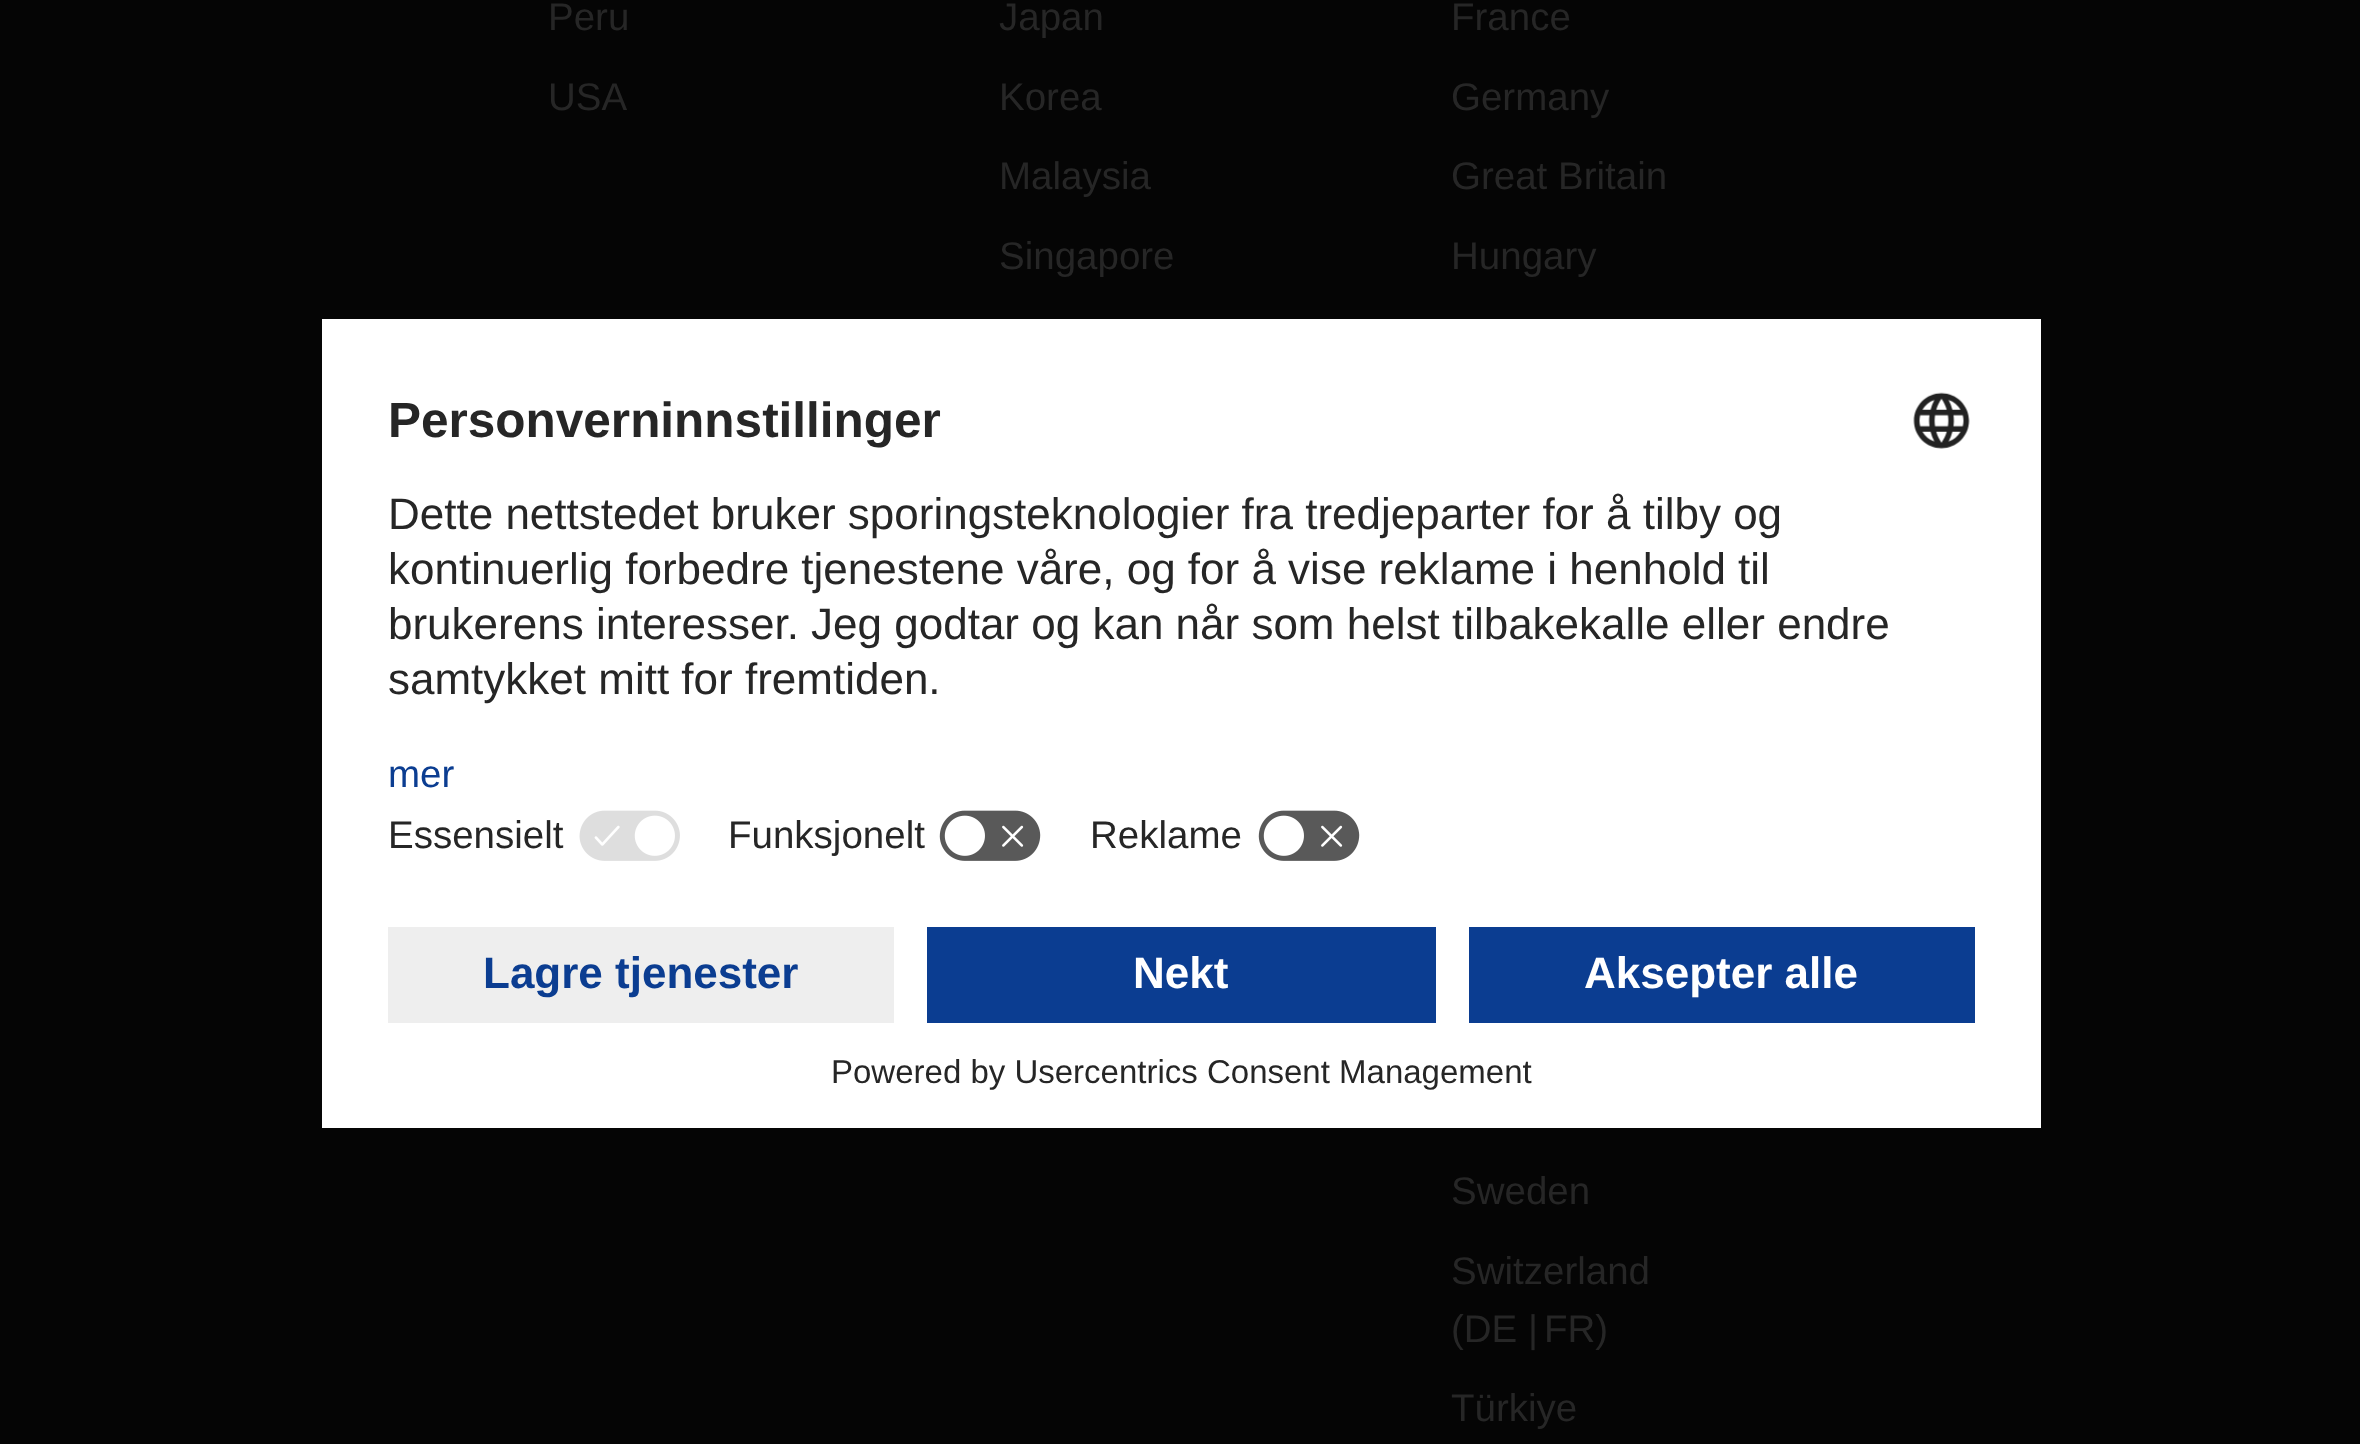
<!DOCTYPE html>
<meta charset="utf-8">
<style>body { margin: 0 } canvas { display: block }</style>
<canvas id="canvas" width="2360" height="1444"></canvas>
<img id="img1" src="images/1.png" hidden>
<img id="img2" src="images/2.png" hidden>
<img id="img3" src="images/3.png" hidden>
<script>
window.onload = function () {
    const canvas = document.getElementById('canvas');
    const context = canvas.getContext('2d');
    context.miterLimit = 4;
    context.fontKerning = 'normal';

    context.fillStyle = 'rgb(5, 5, 5)';
    context.fillRect(0, 0, 2360, 1444);
    context.fillStyle = 'rgb(255, 255, 255)';
    context.fillRect(322, 319, 1719, 809);
    context.drawImage(document.getElementById('img1'), 1913, 392, 57, 57);
    context.drawImage(document.getElementById('img2'), 579, 810, 101, 51);
    context.drawImage(document.getElementById('img3'), 939, 810, 102, 51);
    context.drawImage(document.getElementById('img3'), 1258, 810, 102, 51);
    context.fillStyle = 'rgb(238, 238, 238)';
    context.fillRect(388, 927, 506, 96);
    context.fillStyle = 'rgb(11, 61, 145)';
    context.fillRect(927, 927, 509, 96);
    context.fillRect(1469, 927, 506, 96);
    context.font = '38.5px Liberation Sans';
    context.fillStyle = 'rgb(38, 38, 38)';
    context.fillText('Peru', 548, 30);
    context.fillText('USA', 548, 110);
    context.fillText('Japan', 999, 30);
    context.fillText('Korea', 999, 110);
    context.fillText('Malaysia', 999, 189);
    context.fillText('Singapore', 999, 269);
    context.fillText('France', 1451, 30);
    context.fillText('Germany', 1451, 110);
    context.fillText('Great Britain', 1451, 189);
    context.fillText('Hungary', 1451, 269);
    context.fillText('Sweden', 1451, 1204);
    context.fillText('Switzerland', 1451, 1284);
    context.fillText('(DE', 1451, 1342);
    context.fillText('|', 1528, 1342);
    context.fillText('FR)', 1544, 1342);
    context.fillText('Türkiye', 1451, 1421);
    context.font = 'bold 49.5px Liberation Sans';
    context.fillText('Personverninnstillinger', 388, 437);
    context.font = '44px Liberation Sans';
    context.fillText('Dette nettstedet bruker sporingsteknologier fra tredjeparter for å tilby og', 388, 529);
    context.fillText('kontinuerlig forbedre tjenestene våre, og for å vise reklame i henhold til', 388, 584);
    context.fillText('brukerens interesser. Jeg godtar og kan når som helst tilbakekalle eller endre', 388, 639);
    context.fillText('samtykket mitt for fremtiden.', 388, 694);
    context.font = '38.5px Liberation Sans';
    context.fillStyle = 'rgb(11, 61, 145)';
    context.fillText('mer', 388, 787);
    context.fillStyle = 'rgb(38, 38, 38)';
    context.fillText('Essensielt', 388, 848);
    context.fillText('Funksjonelt', 728, 848);
    context.fillText('Reklame', 1090, 848);
    context.font = 'bold 44px Liberation Sans';
    context.fillStyle = 'rgb(11, 61, 145)';
    context.fillText('Lagre tjenester', 483, 988);
    context.fillStyle = 'rgb(255, 255, 255)';
    context.fillText('Nekt', 1133, 988);
    context.fillText('Aksepter alle', 1584, 988);
    context.font = '33px Liberation Sans';
    context.fillStyle = 'rgb(38, 38, 38)';
    context.fillText('Powered by Usercentrics Consent Management', 831, 1083);
};
</script>
